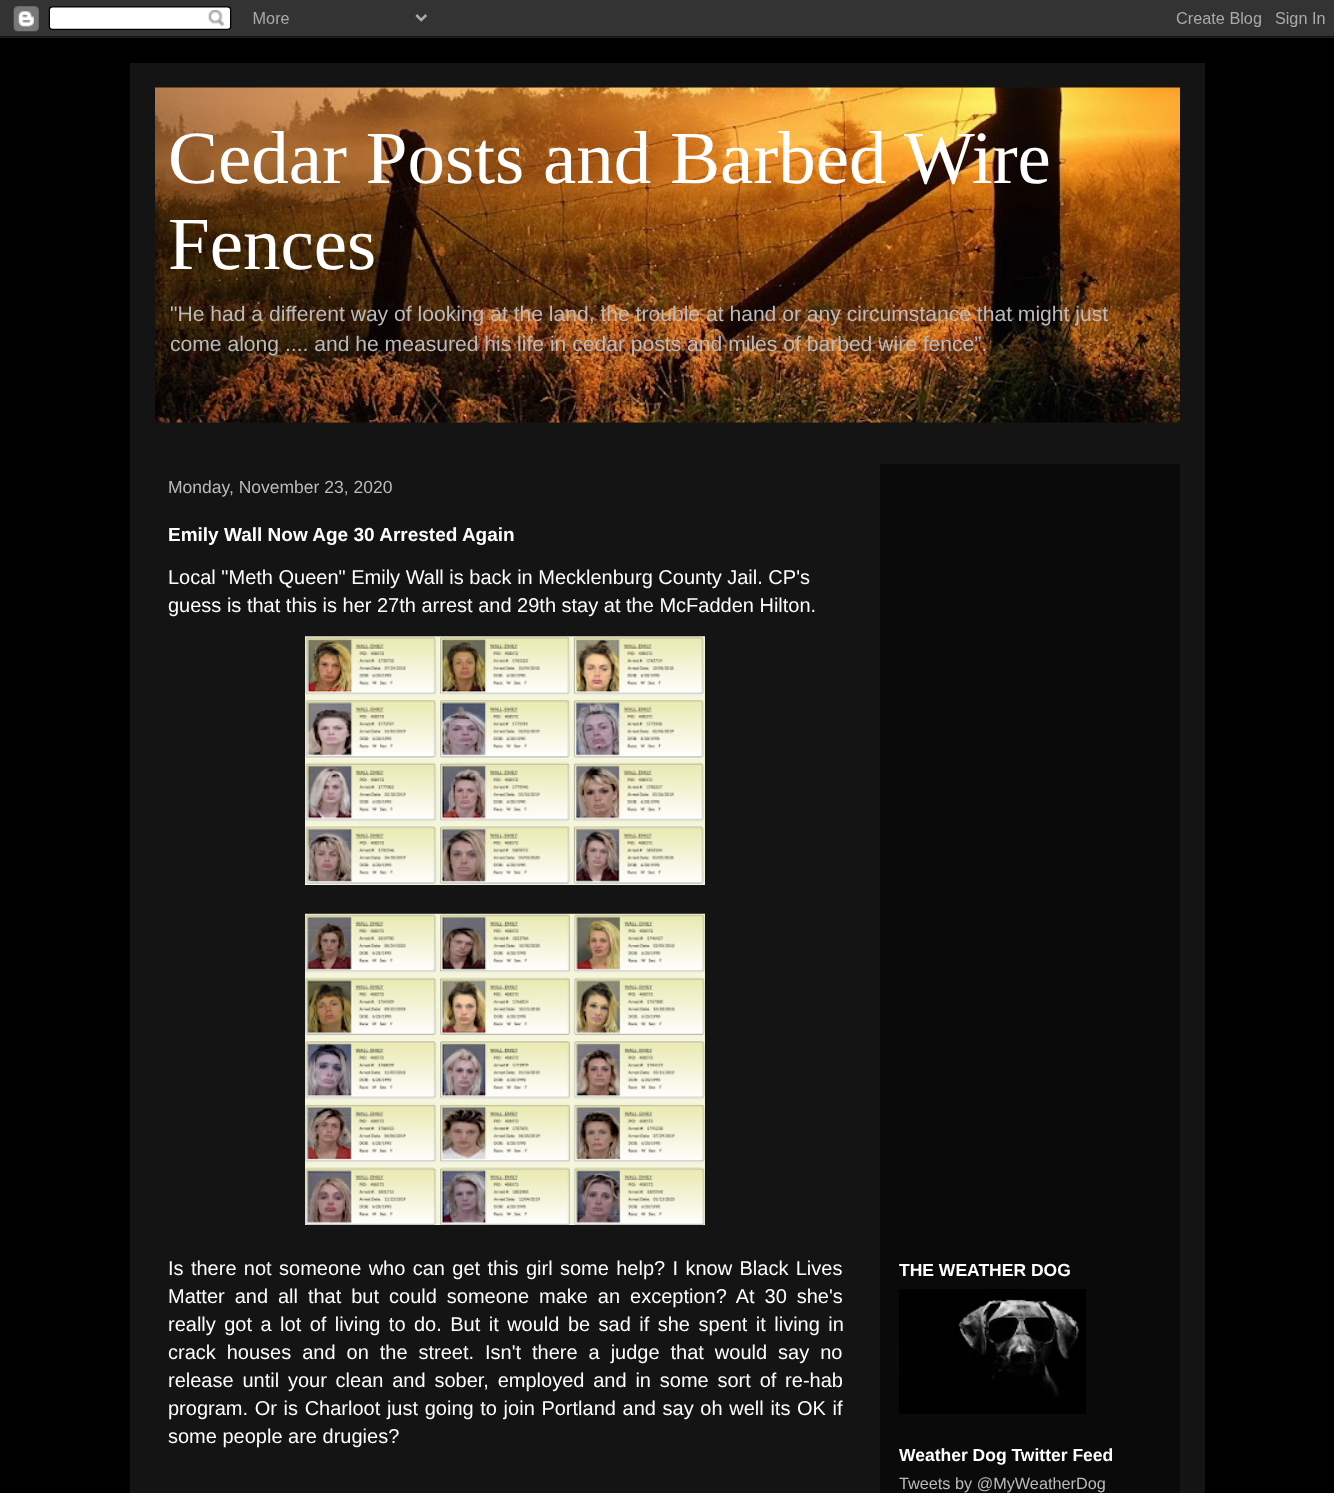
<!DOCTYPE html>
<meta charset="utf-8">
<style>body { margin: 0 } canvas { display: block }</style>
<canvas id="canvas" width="1334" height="1493"></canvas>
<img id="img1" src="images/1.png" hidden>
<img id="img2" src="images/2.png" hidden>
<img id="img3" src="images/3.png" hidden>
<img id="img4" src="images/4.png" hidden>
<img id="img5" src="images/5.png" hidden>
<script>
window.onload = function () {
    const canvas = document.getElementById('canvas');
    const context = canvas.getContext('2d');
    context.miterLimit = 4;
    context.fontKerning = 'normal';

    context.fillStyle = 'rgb(0, 0, 0)';
    context.fillRect(0, 0, 1334, 1493);
    context.drawImage(document.getElementById('img1'), 0, 0, 1334, 38);
    context.fillStyle = 'rgb(20, 20, 20)';
    context.fillRect(130, 63, 1075, 1430);
    context.drawImage(document.getElementById('img2'), 155, 87, 1025, 336);
    context.fillStyle = 'rgb(10, 10, 10)';
    context.fillRect(880, 464, 300, 1029);
    context.drawImage(document.getElementById('img3'), 305, 636, 400, 249);
    context.drawImage(document.getElementById('img4'), 305, 913, 400, 312);
    context.drawImage(document.getElementById('img5'), 899, 1289, 187, 125);
    context.font = '75px Liberation Serif';
    context.fillStyle = 'rgb(255, 255, 255)';
    context.fillText('Cedar Posts and Barbed Wire', 168, 183);
    context.fillText('Fences', 168, 269);
    context.font = '21.1px Liberation Sans';
    context.fillStyle = 'rgb(187, 187, 187)';
    context.fillText('"He had a different way of looking at the land, the trouble at hand or any circumstance that might just', 170, 321);
    context.fillText('come along .... and he measured his life in cedar posts and miles of barbed wire fence”.', 170, 351);
    context.font = '17.5px Liberation Sans';
    context.fillText('Monday, November 23, 2020', 168, 493);
    context.font = 'bold 19px Liberation Sans';
    context.fillStyle = 'rgb(255, 255, 255)';
    context.fillText('Emily Wall Now Age 30 Arrested Again', 168, 541);
    context.font = '20px Liberation Sans';
    context.fillText('Local "Meth Queen" Emily Wall is back in Mecklenburg County Jail. CP\'s', 168, 584);
    context.fillText('guess is that this is her 27th arrest and 29th stay at the McFadden Hilton.', 168, 612);
    context.wordSpacing = '1.8px';
    context.fillText('Is there not someone who can get this girl some help? I know Black Lives', 168, 1275);
    context.wordSpacing = '4.4px';
    context.fillText('Matter and all that but could someone make an exception? At 30 she\'s', 168, 1303);
    context.wordSpacing = '2.9px';
    context.fillText('really got a lot of living to do. But it would be sad if she spent it living in', 168, 1331);
    context.wordSpacing = '5.4px';
    context.fillText('crack houses and on the street. Isn\'t there a judge that would say no', 168, 1359);
    context.wordSpacing = '3.25px';
    context.fillText('release until your clean and sober, employed and in some sort of re-hab', 168, 1387);
    context.wordSpacing = '1.1px';
    context.fillText('program. Or is Charloot just going to join Portland and say oh well its OK if', 168, 1415);
    context.wordSpacing = '0px';
    context.fillText('some people are drugies?', 168, 1443);
    context.font = 'bold 17.5px Liberation Sans';
    context.fillText('THE WEATHER DOG', 899, 1276);
    context.fillText('Weather Dog Twitter Feed', 899, 1461);
    context.font = '16.25px Liberation Sans';
    context.fillStyle = 'rgb(187, 187, 187)';
    context.fillText('Tweets by @MyWeatherDog', 899, 1489);
};
</script>
